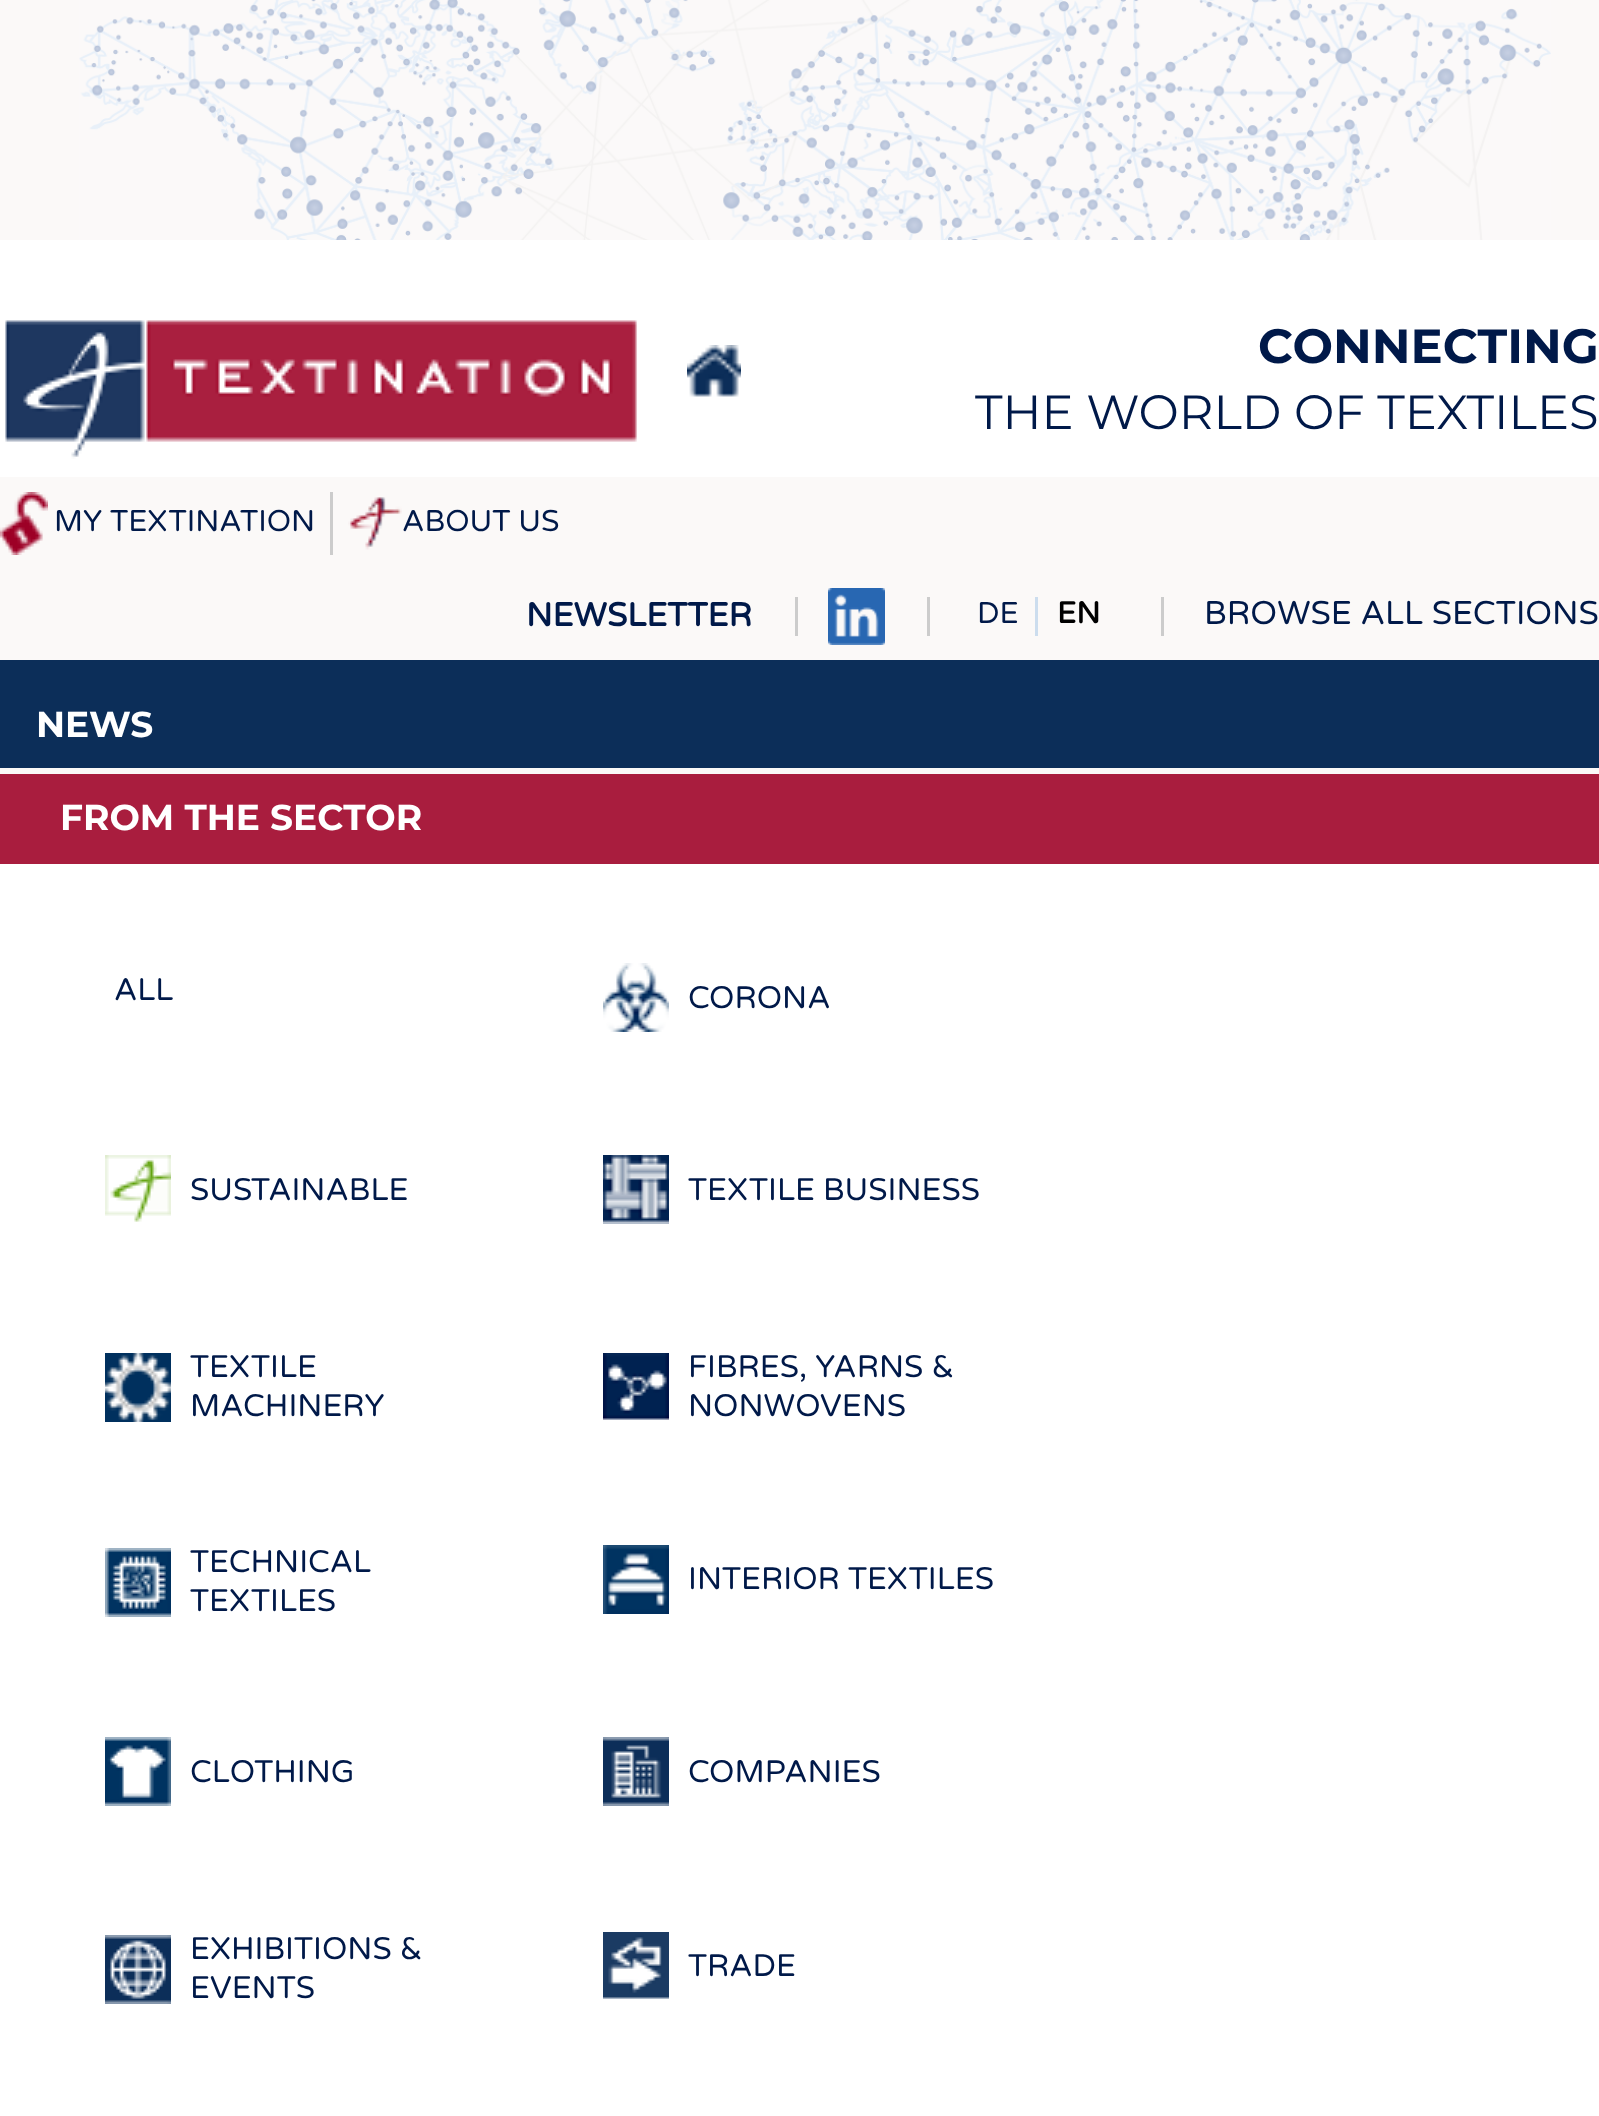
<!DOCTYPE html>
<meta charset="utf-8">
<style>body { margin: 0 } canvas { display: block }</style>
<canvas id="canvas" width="1599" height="2116"></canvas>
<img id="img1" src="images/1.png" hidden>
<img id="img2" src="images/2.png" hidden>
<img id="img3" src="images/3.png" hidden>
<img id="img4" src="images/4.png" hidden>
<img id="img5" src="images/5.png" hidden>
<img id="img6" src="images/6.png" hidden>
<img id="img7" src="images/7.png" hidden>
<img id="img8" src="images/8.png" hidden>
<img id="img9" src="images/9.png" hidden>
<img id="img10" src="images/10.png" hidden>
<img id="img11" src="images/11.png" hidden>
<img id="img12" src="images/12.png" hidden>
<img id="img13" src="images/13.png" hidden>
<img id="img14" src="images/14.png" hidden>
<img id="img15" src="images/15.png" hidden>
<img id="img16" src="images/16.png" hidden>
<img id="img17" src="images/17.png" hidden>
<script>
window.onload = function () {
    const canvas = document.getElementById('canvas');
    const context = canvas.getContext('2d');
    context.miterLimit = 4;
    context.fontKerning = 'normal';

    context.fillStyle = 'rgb(251, 249, 248)';
    context.fillRect(0, 0, 1599, 2116);
    context.fillStyle = 'rgb(12, 46, 89)';
    context.fillRect(0, 660, 1599, 108);
    context.drawImage(document.getElementById('img1'), 79, 0, 1472, 240);
    context.fillStyle = 'rgb(255, 255, 255)';
    context.fillRect(0, 240, 1599, 237);
    context.drawImage(document.getElementById('img2'), 5, 320, 632, 139);
    context.drawImage(document.getElementById('img3'), 687, 345, 54, 52);
    context.drawImage(document.getElementById('img4'), 0, 492, 48, 63);
    context.fillStyle = 'rgb(204, 204, 204)';
    context.fillRect(330, 492, 3, 63);
    context.drawImage(document.getElementById('img5'), 348, 497, 54, 53);
    context.fillRect(795, 597, 3, 39);
    context.fillRect(927, 597, 3, 39);
    context.drawImage(document.getElementById('img6'), 828, 588, 57, 57);
    context.fillRect(1161, 597, 3, 39);
    context.fillStyle = 'rgb(204, 221, 238)';
    context.fillRect(1035, 597, 3, 39);
    context.fillStyle = 'rgb(255, 255, 255)';
    context.fillRect(0, 864, 1599, 1252);
    context.fillStyle = 'rgb(169, 29, 62)';
    context.fillRect(0, 774, 1599, 90);
    context.drawImage(document.getElementById('img7'), 603, 963, 66, 69);
    context.drawImage(document.getElementById('img8'), 105, 1155, 66, 67);
    context.drawImage(document.getElementById('img9'), 603, 1155, 66, 69);
    context.drawImage(document.getElementById('img10'), 105, 1353, 66, 69);
    context.drawImage(document.getElementById('img11'), 603, 1353, 66, 67);
    context.drawImage(document.getElementById('img12'), 105, 1548, 66, 69);
    context.drawImage(document.getElementById('img13'), 603, 1545, 66, 69);
    context.drawImage(document.getElementById('img14'), 105, 1737, 66, 69);
    context.drawImage(document.getElementById('img15'), 603, 1737, 66, 69);
    context.drawImage(document.getElementById('img16'), 105, 1935, 66, 69);
    context.drawImage(document.getElementById('img17'), 603, 1932, 66, 67);
    context.font = '100 48px Montserrat';
    context.fillStyle = 'rgb(0, 25, 73)';
    context.fillText('CONNECTING', 1258, 363);
    context.font = '100 48px "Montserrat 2"';
    context.fillText('THE WORLD OF TEXTILES', 975, 429);
    context.font = '30px Varela Round';
    context.fillText('MY TEXTINATION', 54, 531);
    context.fillText('ABOUT US', 402, 531);
    context.font = 'bold 33px Varela Round';
    context.fillText('NEWSLETTER', 526, 626);
    context.font = '30px Varela Round';
    context.fillText('DE', 977, 623);
    context.font = 'bold 30px Varela Round';
    context.fillStyle = 'rgb(0, 0, 0)';
    context.fillText('EN', 1057, 623);
    context.font = '33px Varela Round';
    context.fillStyle = 'rgb(0, 25, 73)';
    context.fillText('BROWSE ALL SECTIONS', 1204, 624);
    context.font = '100 36px Montserrat';
    context.fillStyle = 'rgb(255, 255, 255)';
    context.fillText('NEWS', 36, 737);
    context.fillText('FROM THE SECTOR', 60, 830);
    context.font = '31.25px Varela Round';
    context.fillStyle = 'rgb(0, 25, 73)';
    context.fillText('ALL', 114, 1000);
    context.fillText('CORONA', 688, 1008);
    context.fillText('SUSTAINABLE', 190, 1200);
    context.fillText('TEXTILE BUSINESS', 688, 1200);
    context.fillText('TEXTILE', 190, 1377);
    context.fillText('MACHINERY', 190, 1416);
    context.fillText('FIBRES, YARNS &', 688, 1377);
    context.fillText('NONWOVENS', 688, 1416);
    context.fillText('TECHNICAL', 190, 1572);
    context.fillText('TEXTILES', 190, 1611);
    context.fillText('INTERIOR TEXTILES', 688, 1589);
    context.fillText('CLOTHING', 190, 1782);
    context.fillText('COMPANIES', 688, 1782);
    context.fillText('EXHIBITIONS &', 190, 1959);
    context.fillText('EVENTS', 190, 1998);
    context.fillText('TRADE', 688, 1976);
};
</script>
